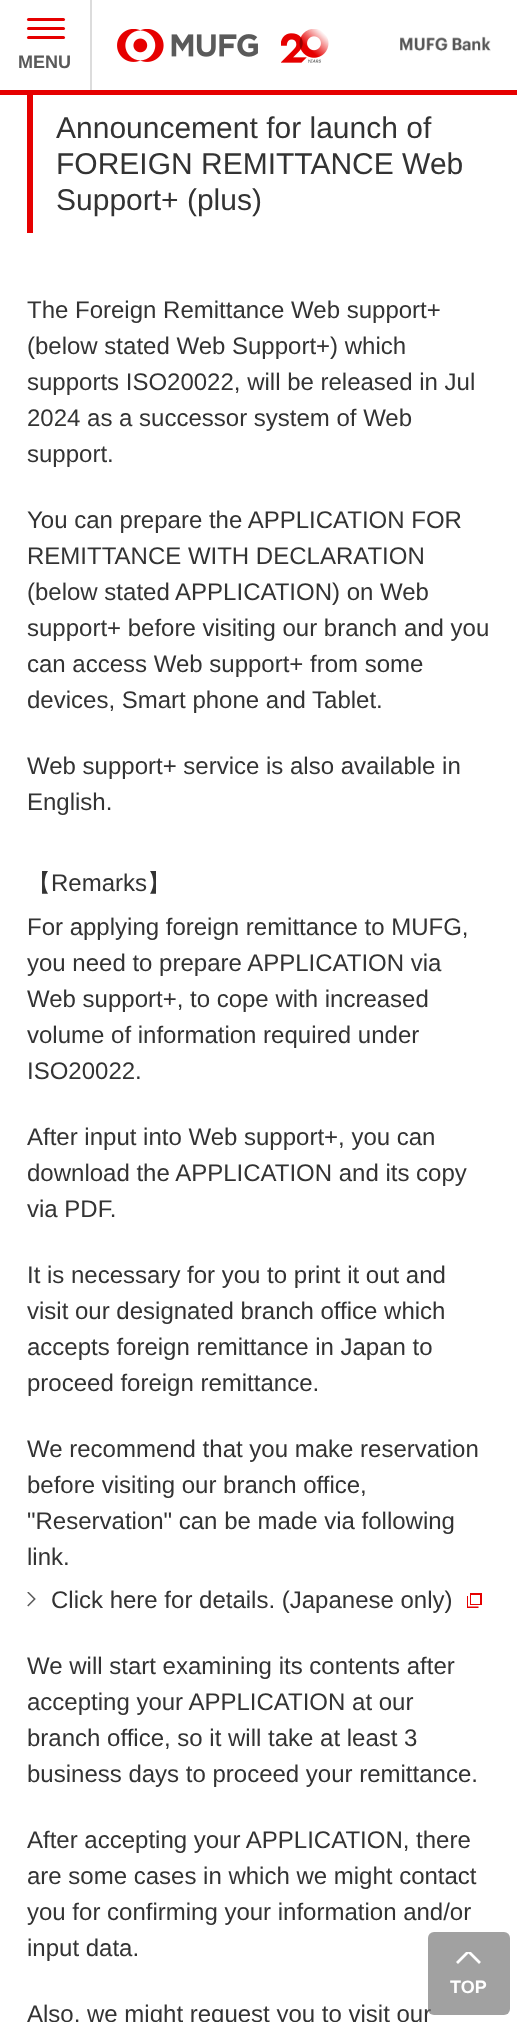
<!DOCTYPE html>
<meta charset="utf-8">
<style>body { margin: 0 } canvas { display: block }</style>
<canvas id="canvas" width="517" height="2022"></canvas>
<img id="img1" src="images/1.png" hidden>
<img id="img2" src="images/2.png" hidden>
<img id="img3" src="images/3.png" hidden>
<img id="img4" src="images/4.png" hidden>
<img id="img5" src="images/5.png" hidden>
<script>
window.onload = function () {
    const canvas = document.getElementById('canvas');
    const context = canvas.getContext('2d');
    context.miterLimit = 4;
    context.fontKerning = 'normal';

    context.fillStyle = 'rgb(255, 255, 255)';
    context.fillRect(0, 0, 517, 2022);
    context.fillStyle = 'rgb(230, 0, 0)';
    context.fillRect(0, 90, 517, 5);
    context.beginPath();
    context.roundRect(27, 18, 38, 3, 1.5);
    context.fill();
    context.beginPath();
    context.roundRect(27, 27, 38, 3, 1.5);
    context.fill();
    context.beginPath();
    context.roundRect(27, 36, 38, 3, 1.5);
    context.fill();
    context.fillStyle = 'rgb(220, 220, 220)';
    context.fillRect(90, 0, 2, 90);
    context.drawImage(document.getElementById('img1'), 117, 29, 141, 33);
    context.drawImage(document.getElementById('img2'), 281, 29, 48, 34);
    context.drawImage(document.getElementById('img3'), 400, 36, 91, 16);
    context.fillStyle = 'rgb(230, 0, 0)';
    context.fillRect(27, 95, 6, 138);
    context.drawImage(document.getElementById('img4'), 27, 1592, 9, 15);
    context.drawImage(document.getElementById('img5'), 467, 1593, 15, 15);
    context.font = 'bold 18px Liberation Sans';
    context.fillStyle = 'rgb(90, 90, 90)';
    context.fillText('MENU', 18, 68);
    context.font = '30px Liberation Sans';
    context.fillStyle = 'rgb(51, 51, 51)';
    context.fillText('Announcement for launch of', 56, 138);
    context.fillText('FOREIGN REMITTANCE Web', 56, 174);
    context.fillText('Support+ (plus)', 56, 210);
    context.font = '24px Liberation Sans';
    context.fillText('The Foreign Remittance Web support+', 27, 318);
    context.fillText('(below stated Web Support+) which', 27, 354);
    context.fillText('supports ISO20022, will be released in Jul', 27, 390);
    context.fillText('2024 as a successor system of Web', 27, 426);
    context.fillText('support.', 27, 462);
    context.fillText('You can prepare the APPLICATION FOR', 27, 528);
    context.fillText('REMITTANCE WITH DECLARATION', 27, 564);
    context.fillText('(below stated APPLICATION) on Web', 27, 600);
    context.fillText('support+ before visiting our branch and you', 27, 636);
    context.fillText('can access Web support+ from some', 27, 672);
    context.fillText('devices, Smart phone and Tablet.', 27, 708);
    context.fillText('Web support+ service is also available in', 27, 774);
    context.fillText('English.', 27, 810);
    context.font = '500 24px WenQuanYi Zen Hei';
    context.fillText('【', 27, 891);
    context.font = '24px Liberation Sans';
    context.fillText('Remarks', 51, 891);
    context.font = '500 24px WenQuanYi Zen Hei';
    context.fillText('】', 147, 891);
    context.font = '24px Liberation Sans';
    context.fillText('For applying foreign remittance to MUFG,', 27, 935);
    context.fillText('you need to prepare APPLICATION via', 27, 971);
    context.fillText('Web support+, to cope with increased', 27, 1007);
    context.fillText('volume of information required under', 27, 1043);
    context.fillText('ISO20022.', 27, 1079);
    context.fillText('After input into Web support+, you can', 27, 1145);
    context.fillText('download the APPLICATION and its copy', 27, 1181);
    context.fillText('via PDF.', 27, 1217);
    context.fillText('It is necessary for you to print it out and', 27, 1283);
    context.fillText('visit our designated branch office which', 27, 1319);
    context.fillText('accepts foreign remittance in Japan to', 27, 1355);
    context.fillText('proceed foreign remittance.', 27, 1391);
    context.fillText('We recommend that you make reservation', 27, 1457);
    context.fillText('before visiting our branch office,', 27, 1493);
    context.fillText('"Reservation" can be made via following', 27, 1529);
    context.fillText('link.', 27, 1565);
    context.fillText('Click here for details. (Japanese only)', 51, 1608);
    context.fillText('We will start examining its contents after', 27, 1674);
    context.fillText('accepting your APPLICATION at our', 27, 1710);
    context.fillText('branch office, so it will take at least 3', 27, 1746);
    context.fillText('business days to proceed your remittance.', 27, 1782);
    context.fillText('After accepting your APPLICATION, there', 27, 1848);
    context.fillText('are some cases in which we might contact', 27, 1884);
    context.fillText('you for confirming your information and/or', 27, 1920);
    context.fillText('input data.', 27, 1956);
    context.fillText('Also, we might request you to visit our', 27, 2022);
    context.fillStyle = 'rgba(121, 121, 121, 0.7)';
    context.beginPath();
    context.roundRect(428, 1932, 82, 83, 6);
    context.fill();
    context.save();
    context.beginPath();
    context.rect(456, 1952, 26, 15);
    context.clip();
    context.beginPath();
    context.moveTo(457, 1963);
    context.lineTo(468.5, 1951.5);
    context.lineTo(480, 1963);
    context.strokeStyle = 'rgb(255, 255, 255)';
    context.lineWidth = 2.8;
    context.stroke();
    context.restore();
    context.font = 'bold 18px Liberation Sans';
    context.fillStyle = 'rgb(255, 255, 255)';
    context.fillText('TOP', 450, 1993);
};
</script>
